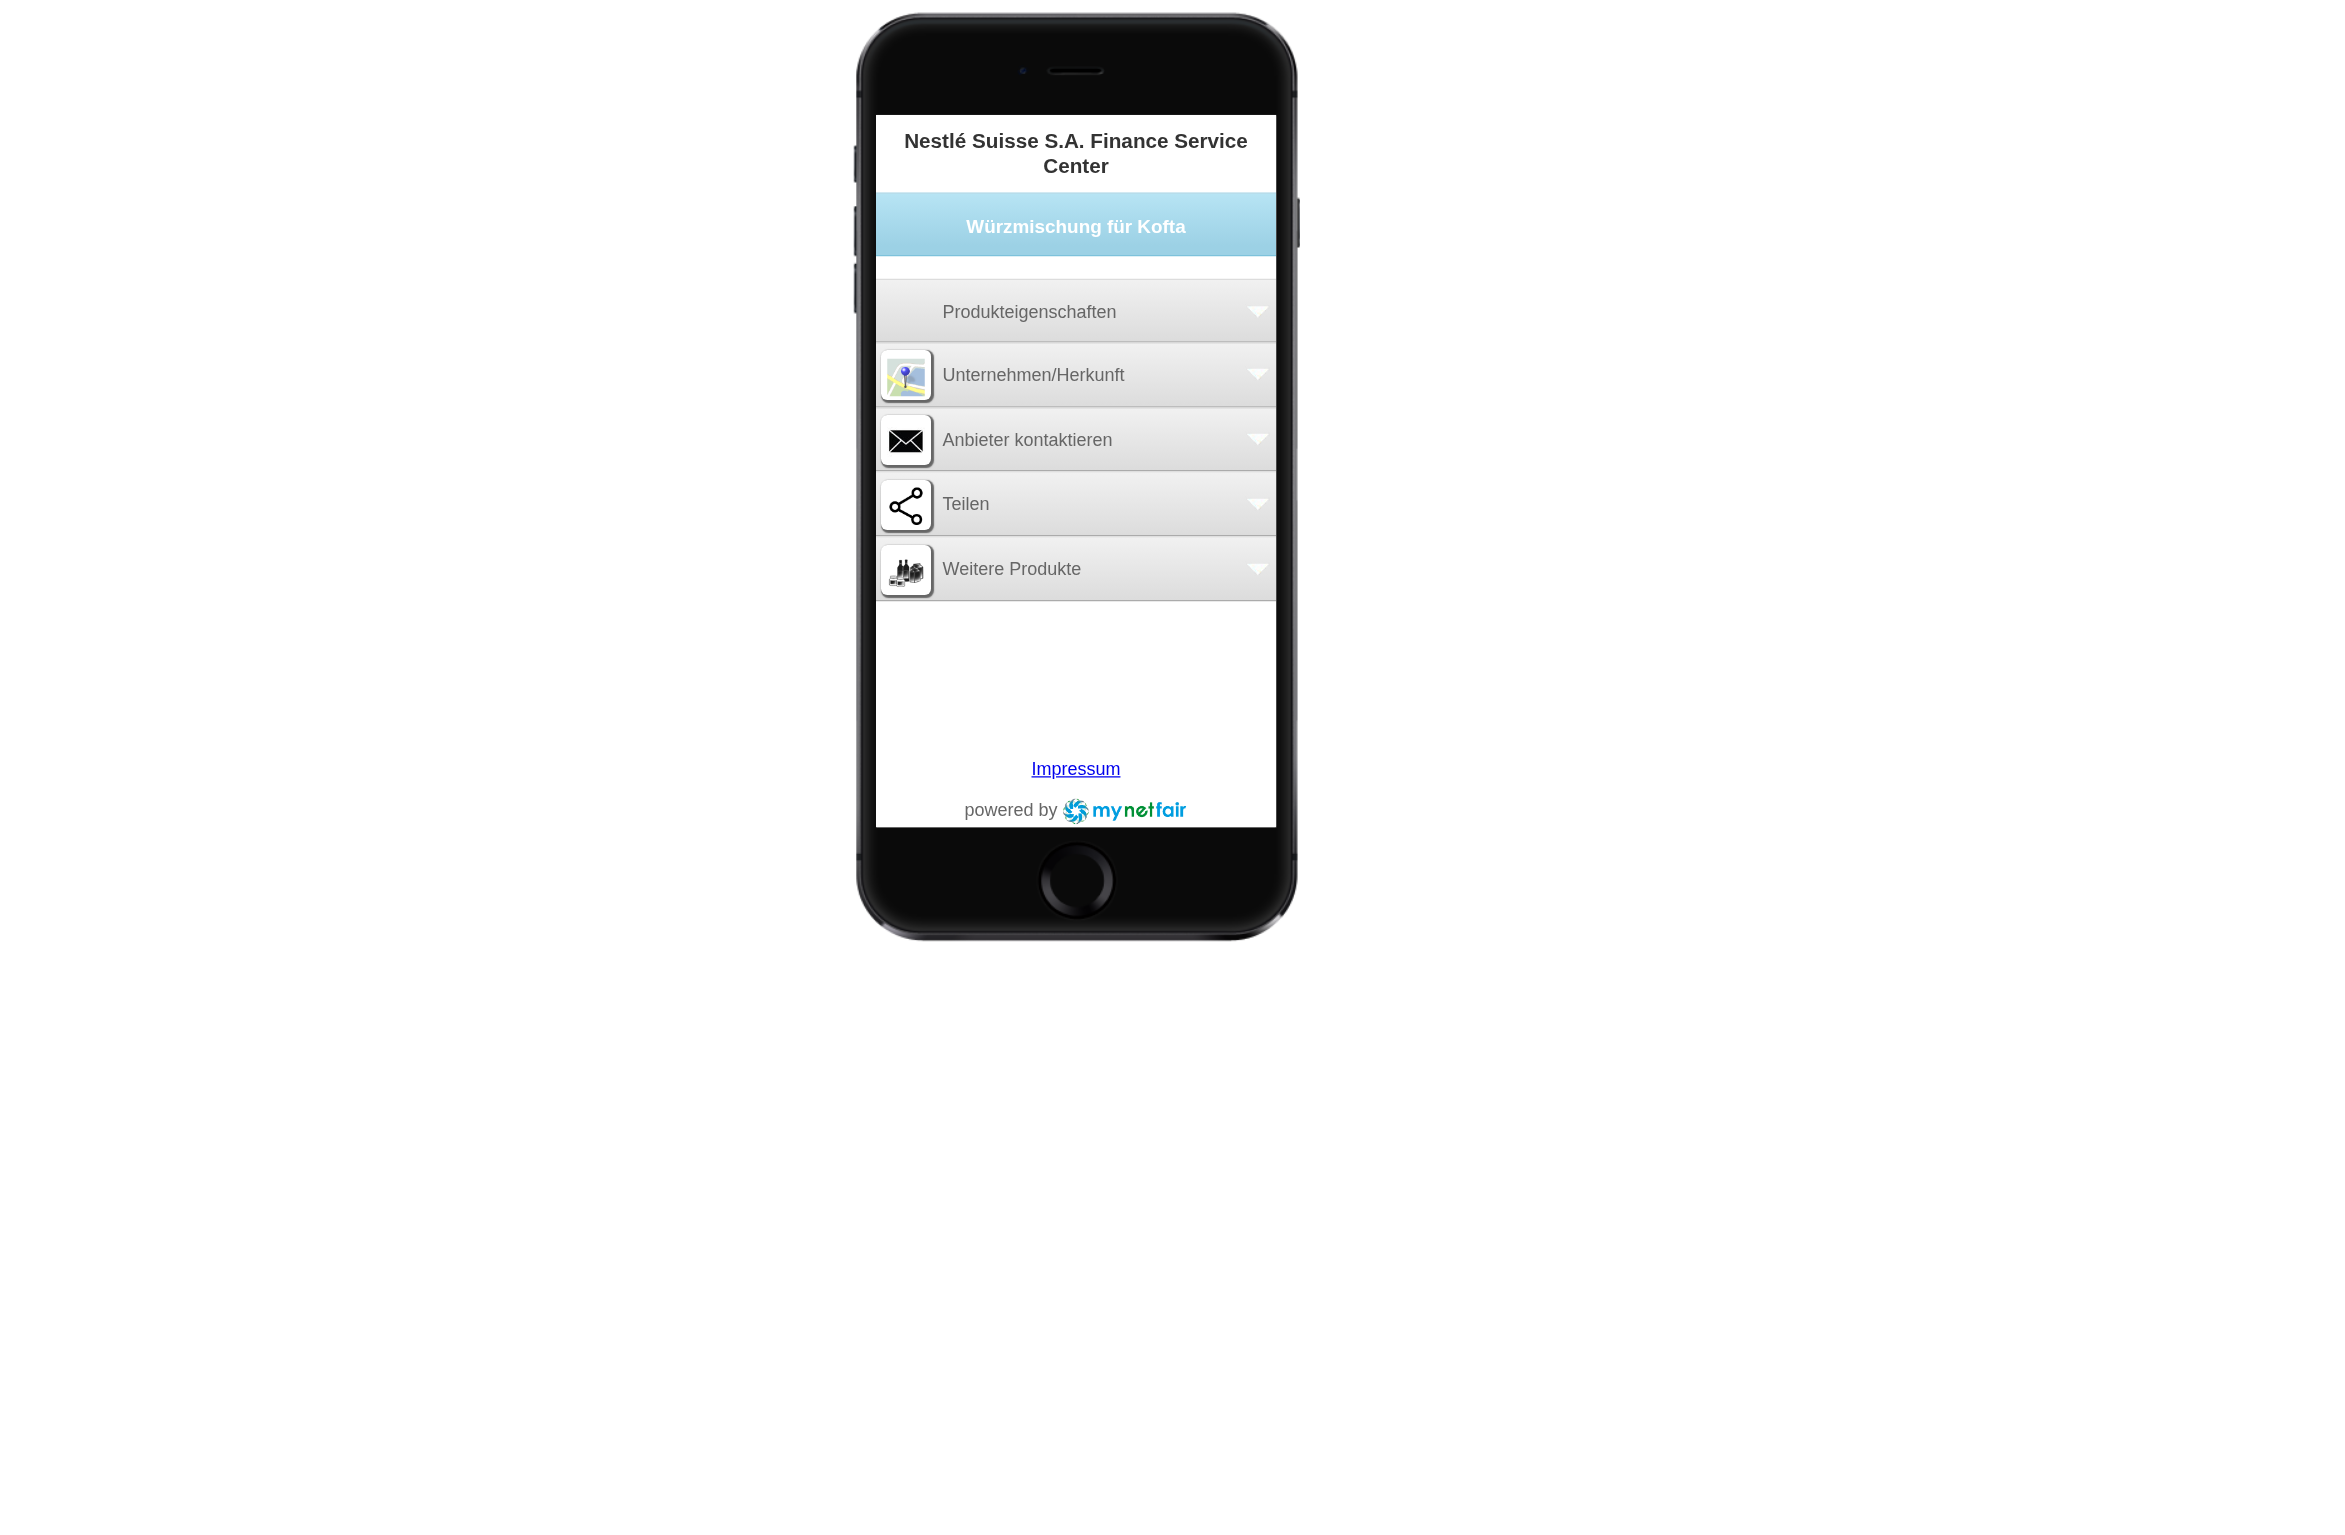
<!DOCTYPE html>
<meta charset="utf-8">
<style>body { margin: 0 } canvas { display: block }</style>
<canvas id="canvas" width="2345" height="1535"></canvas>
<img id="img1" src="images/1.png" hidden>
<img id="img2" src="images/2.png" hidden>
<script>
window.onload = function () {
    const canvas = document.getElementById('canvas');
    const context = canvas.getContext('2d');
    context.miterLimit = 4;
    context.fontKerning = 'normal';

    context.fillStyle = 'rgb(255, 255, 255)';
    context.fillRect(0, 0, 2345, 1535);
    context.drawImage(document.getElementById('img1'), 853, 12, 447, 930);
    context.drawImage(document.getElementById('img2'), 876, 115, 400, 712);
};
</script>
